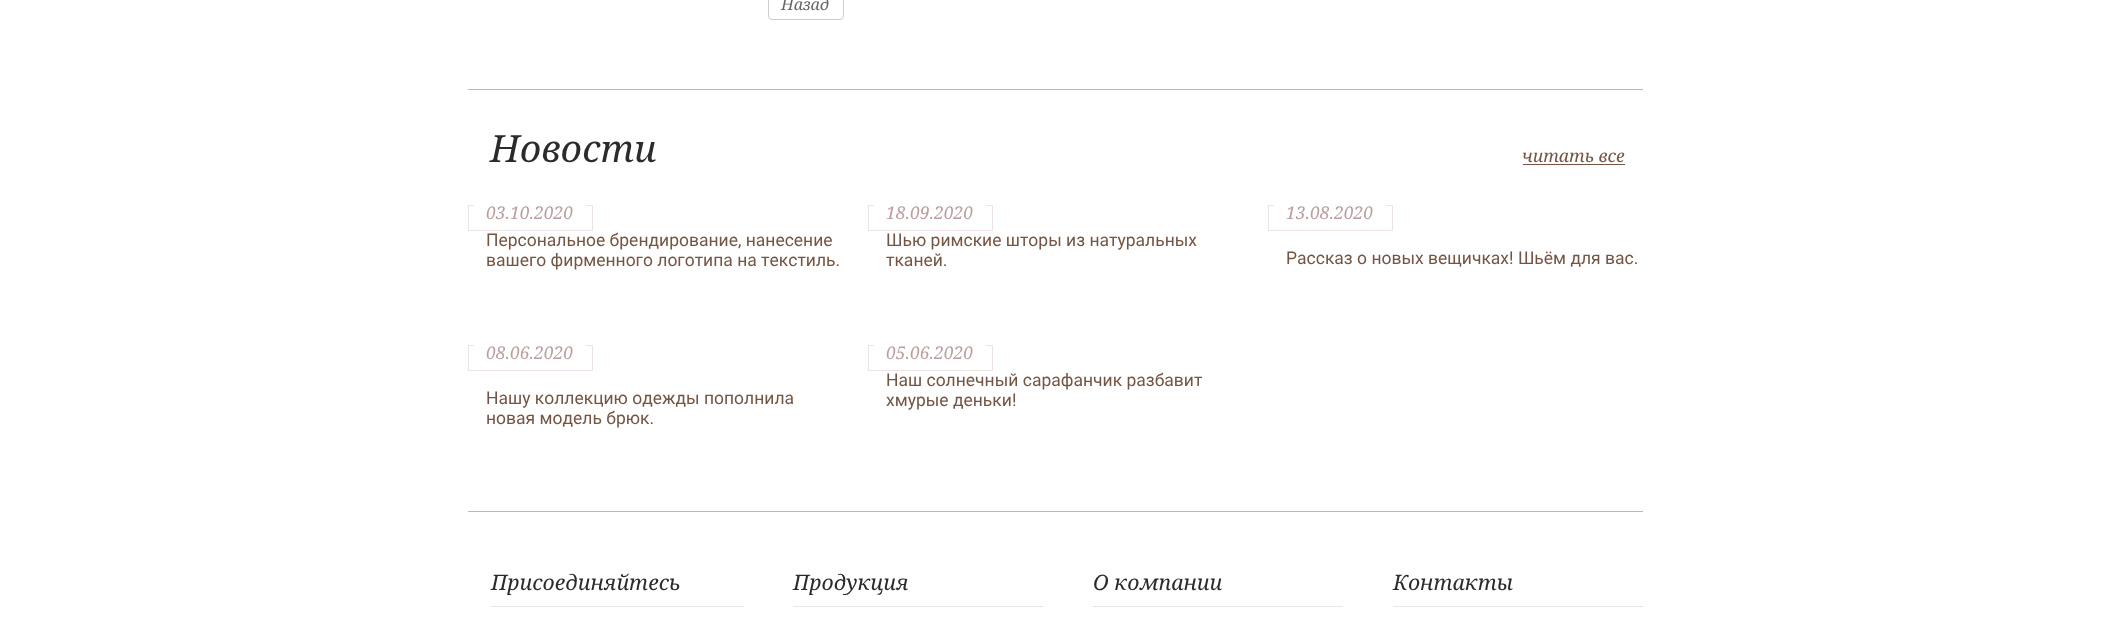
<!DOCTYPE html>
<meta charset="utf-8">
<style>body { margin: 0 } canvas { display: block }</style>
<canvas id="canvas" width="2109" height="632"></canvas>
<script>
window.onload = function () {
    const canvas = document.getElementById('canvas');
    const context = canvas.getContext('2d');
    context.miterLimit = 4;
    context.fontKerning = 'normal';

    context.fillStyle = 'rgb(255, 255, 255)';
    context.fillRect(0, 0, 2109, 632);
    context.beginPath();
    context.roundRect(768.5, -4.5, 75, 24, 3.5);
    context.strokeStyle = 'rgb(205, 205, 205)';
    context.stroke();
    context.fillStyle = 'rgb(201, 178, 178)';
    context.fillRect(468, 89, 1175, 1);
    context.fillRect(468, 511, 1175, 1);
    context.fillStyle = 'rgb(116, 84, 68)';
    context.fillRect(1523, 164, 102, 1);
    context.strokeStyle = 'rgb(236, 227, 228)';
    context.strokeRect(468.5, 205.5, 124, 25);
    context.fillStyle = 'rgb(255, 255, 255)';
    context.fillRect(474, 205, 112, 1);
    context.strokeRect(868.5, 205.5, 124, 25);
    context.fillRect(874, 205, 112, 1);
    context.strokeRect(1268.5, 205.5, 124, 25);
    context.fillRect(1274, 205, 112, 1);
    context.strokeRect(468.5, 345.5, 124, 25);
    context.fillRect(474, 345, 112, 1);
    context.strokeRect(868.5, 345.5, 124, 25);
    context.fillRect(874, 345, 112, 1);
    context.fillStyle = 'rgb(234, 228, 228)';
    context.fillRect(491, 606, 253, 1);
    context.fillRect(793, 606, 250, 1);
    context.fillRect(1093, 606, 250, 1);
    context.fillRect(1393, 606, 250, 1);
    context.font = 'italic 16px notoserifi';
    context.fillStyle = 'rgb(102, 102, 102)';
    context.fillText('Назад', 781, 10);
    context.font = 'italic 37.5px notoserifi';
    context.fillStyle = 'rgb(43, 43, 43)';
    context.fillText('Новости', 490, 162);
    context.font = 'italic 17.5px notoserifi';
    context.fillStyle = 'rgb(116, 84, 68)';
    context.fillText('читать все', 1522, 162);
    context.fillStyle = 'rgb(188, 158, 158)';
    context.fillText('03.10.2020', 486, 219);
    context.font = '17.5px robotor';
    context.fillStyle = 'rgb(116, 84, 68)';
    context.fillText('Персональное брендирование, нанесение', 486, 246);
    context.fillText('вашего фирменного логотипа на текстиль.', 486, 266);
    context.font = 'italic 17.5px notoserifi';
    context.fillStyle = 'rgb(188, 158, 158)';
    context.fillText('18.09.2020', 886, 219);
    context.font = '17.5px robotor';
    context.fillStyle = 'rgb(116, 84, 68)';
    context.fillText('Шью римские шторы из натуральных', 886, 246);
    context.fillText('тканей.', 886, 266);
    context.font = 'italic 17.5px notoserifi';
    context.fillStyle = 'rgb(188, 158, 158)';
    context.fillText('13.08.2020', 1286, 219);
    context.font = '17.5px robotor';
    context.fillStyle = 'rgb(116, 84, 68)';
    context.fillText('Рассказ о новых вещичках! Шьём для вас.', 1286, 264);
    context.font = 'italic 17.5px notoserifi';
    context.fillStyle = 'rgb(188, 158, 158)';
    context.fillText('08.06.2020', 486, 359);
    context.font = '17.5px robotor';
    context.fillStyle = 'rgb(116, 84, 68)';
    context.fillText('Нашу коллекцию одежды пополнила', 486, 404);
    context.fillText('новая модель брюк.', 486, 424);
    context.font = 'italic 17.5px notoserifi';
    context.fillStyle = 'rgb(188, 158, 158)';
    context.fillText('05.06.2020', 886, 359);
    context.font = '17.5px robotor';
    context.fillStyle = 'rgb(116, 84, 68)';
    context.fillText('Наш солнечный сарафанчик разбавит', 886, 386);
    context.fillText('хмурые деньки!', 886, 406);
    context.font = 'italic 21.25px notoserifi';
    context.fillStyle = 'rgb(43, 43, 43)';
    context.fillText('Присоединяйтесь', 491, 590);
    context.fillText('Продукция', 793, 590);
    context.fillText('О компании', 1093, 590);
    context.fillText('Контакты', 1393, 590);
};
</script>
